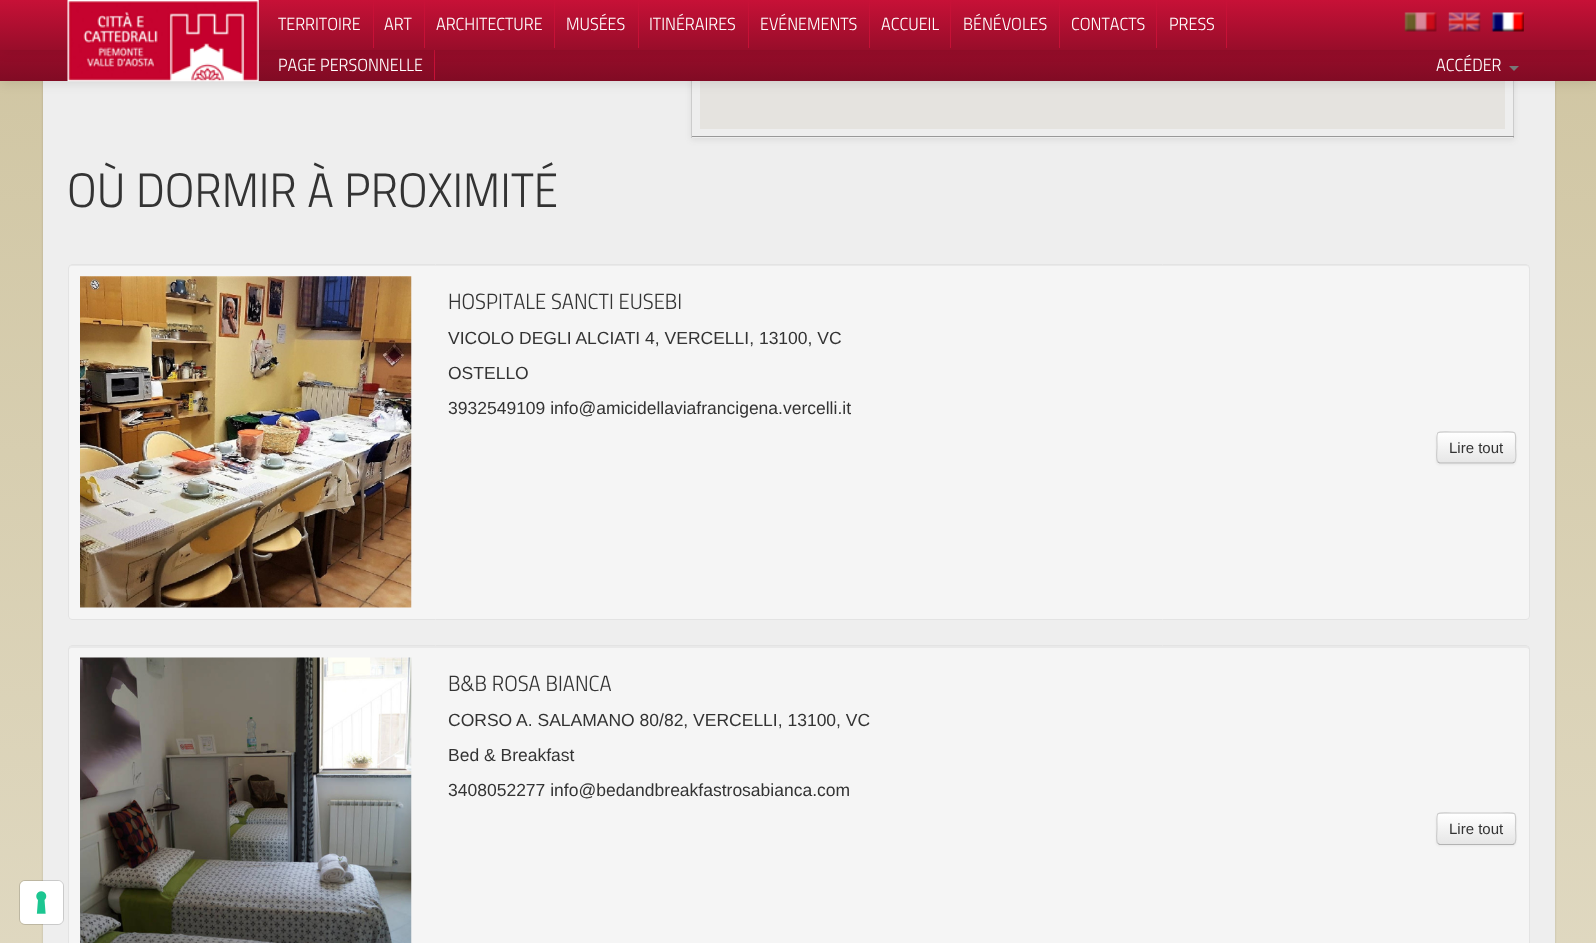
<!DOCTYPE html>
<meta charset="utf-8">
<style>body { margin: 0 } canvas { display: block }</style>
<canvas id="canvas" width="1596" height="943"></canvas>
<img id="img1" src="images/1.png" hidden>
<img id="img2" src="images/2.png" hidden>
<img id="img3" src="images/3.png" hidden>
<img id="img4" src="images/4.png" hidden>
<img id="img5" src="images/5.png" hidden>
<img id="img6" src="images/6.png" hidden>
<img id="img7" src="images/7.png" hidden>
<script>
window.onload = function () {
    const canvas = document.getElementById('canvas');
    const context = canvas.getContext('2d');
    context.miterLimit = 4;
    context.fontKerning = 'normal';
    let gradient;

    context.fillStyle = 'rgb(255, 255, 255)';
    context.fillRect(0, 0, 1596, 943);
    gradient = context.createLinearGradient(798, -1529, 798, 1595);
    gradient.addColorStop(0, 'rgb(182, 166, 112)');
    gradient.addColorStop(1, 'rgb(234, 229, 213)');
    context.fillStyle = gradient;
    context.fillRect(0, 81, 1596, 862);
    context.fillStyle = 'rgba(0, 0, 0, 0.15)';
    context.filter = 'blur(1px)';
    context.beginPath();
    context.roundRect(43, -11, 1512, 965, 8);
    context.fill();
    context.filter = 'none';
    context.fillStyle = 'rgb(238, 238, 238)';
    context.fillRect(43, 81, 1512, 862);
    context.save();
    context.beginPath();
    context.moveTo(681, 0);
    context.lineTo(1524, 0);
    context.lineTo(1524, 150);
    context.lineTo(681, 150);
    context.closePath();
    context.moveTo(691, -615);
    context.lineTo(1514, -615);
    context.lineTo(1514, 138);
    context.lineTo(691, 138);
    context.closePath();
    context.clip('evenodd');
    context.fillStyle = 'rgba(64, 64, 64, 0.1)';
    context.filter = 'blur(3px)';
    context.beginPath();
    context.rect(691, -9, 823, 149);
    context.fill();
    context.filter = 'none';
    context.restore();
    context.fillStyle = 'rgb(204, 204, 204)';
    context.fillRect(1513, 81, 1, 57);
    context.fillStyle = 'rgb(153, 153, 153)';
    context.fillRect(691, 136, 823, 1);
    context.fillStyle = 'rgb(204, 204, 204)';
    context.fillRect(691, 81, 1, 57);
    context.fillStyle = 'rgb(229, 227, 223)';
    context.fillRect(700, 81, 805, 48);
    context.fillStyle = 'rgba(0, 0, 0, 0.1)';
    context.filter = 'blur(6px)';
    context.beginPath();
    context.rect(0, 51, 1596, 32);
    context.fill();
    context.filter = 'none';
    gradient = context.createLinearGradient(798, 50, 798, 81);
    gradient.addColorStop(0, 'rgb(152, 13, 42)');
    gradient.addColorStop(1, 'rgb(129, 11, 36)');
    context.fillStyle = gradient;
    context.fillRect(0, 50, 1596, 31);
    context.fillStyle = 'rgb(199, 17, 55)';
    context.fillRect(434, 50, 1, 30);
    context.fillStyle = 'rgb(119, 119, 119)';
    context.beginPath();
    context.moveTo(1509, 66);
    context.lineTo(1519, 66);
    context.lineTo(1514, 71);
    context.closePath();
    context.fill();
    context.fillStyle = 'rgba(0, 0, 0, 0.1)';
    context.filter = 'blur(6px)';
    context.beginPath();
    context.rect(0, 1, 1596, 50);
    context.fill();
    context.filter = 'none';
    gradient = context.createLinearGradient(798, 0, 798, 50);
    gradient.addColorStop(0, 'rgb(199, 17, 55)');
    gradient.addColorStop(1, 'rgb(152, 13, 42)');
    context.fillStyle = gradient;
    context.fillRect(0, 0, 1596, 50);
    context.fillStyle = 'rgb(199, 17, 55)';
    context.fillRect(373, 0, 1, 48);
    context.fillRect(424, 0, 1, 48);
    context.fillRect(554, 0, 1, 48);
    context.fillRect(638, 0, 1, 48);
    context.fillRect(748, 0, 1, 48);
    context.fillRect(869, 0, 1, 48);
    context.fillRect(950, 0, 1, 48);
    context.fillRect(1059, 0, 1, 48);
    context.fillRect(1156, 0, 1, 48);
    context.fillRect(1226, 0, 1, 48);
    context.drawImage(document.getElementById('img1'), 1404, 12, 33, 20);
    context.drawImage(document.getElementById('img2'), 1448, 12, 33, 20);
    context.drawImage(document.getElementById('img3'), 1491, 12, 33, 20);
    context.drawImage(document.getElementById('img4'), 67, 0, 192, 82);
    context.fillStyle = 'rgb(245, 245, 245)';
    context.beginPath();
    context.roundRect(68, 264, 1462, 356, 4);
    context.fill();
    context.fillStyle = 'rgb(233, 233, 233)';
    context.beginPath();
    context.moveTo(71, 266);
    context.lineTo(1526, 266);
    context.bezierCurveTo(1528, 266, 1529, 267, 1529, 269);
    context.lineTo(1529, 268);
    context.bezierCurveTo(1529, 266, 1528, 265, 1526, 265);
    context.lineTo(72, 265);
    context.bezierCurveTo(70, 265, 69, 266, 69, 268);
    context.lineTo(69, 269);
    context.bezierCurveTo(69, 267, 70, 266, 71, 266);
    context.closePath();
    context.fill();
    context.beginPath();
    context.roundRect(68.5, 264.5, 1461, 355, 3.5);
    context.strokeStyle = 'rgb(227, 227, 227)';
    context.stroke();
    context.drawImage(document.getElementById('img5'), 80, 276, 332, 332);
    context.fillStyle = 'rgba(0, 0, 0, 0.05)';
    context.filter = 'blur(1px)';
    context.beginPath();
    context.roundRect(1436, 433, 80, 32, 4);
    context.fill();
    context.filter = 'none';
    context.fillStyle = 'rgb(245, 245, 245)';
    context.beginPath();
    context.roundRect(1436, 431, 80, 33, 4);
    context.fill();
    context.save();
    context.beginPath();
    context.roundRect(1436, 431, 80, 33, 4);
    context.clip();
    gradient = context.createLinearGradient(1476, 433, 1476, 463);
    gradient.addColorStop(0, 'rgb(255, 255, 255)');
    gradient.addColorStop(1, 'rgb(230, 230, 230)');
    context.fillStyle = gradient;
    context.fillRect(1436, 433, 80, 30);
    context.restore();
    context.beginPath();
    context.moveTo(1514.5, 462);
    context.lineTo(1513, 463);
    context.lineTo(1439.5, 463);
    context.lineTo(1438, 462);
    context.strokeStyle = 'rgb(179, 179, 179)';
    context.lineWidth = 1.2;
    context.stroke();
    context.beginPath();
    context.moveTo(1438, 462);
    context.bezierCurveTo(1435.5, 460, 1437, 450.5, 1437, 447.5);
    context.bezierCurveTo(1437, 429.5, 1434, 432, 1452, 432);
    context.lineTo(1500.5, 432);
    context.bezierCurveTo(1518.5, 432, 1515.5, 429.5, 1515.5, 447.5);
    context.bezierCurveTo(1515.5, 450.5, 1517, 460, 1514.5, 462);
    context.strokeStyle = 'rgb(204, 204, 204)';
    context.stroke();
    context.beginPath();
    context.roundRect(68, 645, 1462, 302, 4);
    context.fill();
    context.fillStyle = 'rgb(233, 233, 233)';
    context.beginPath();
    context.moveTo(71, 648);
    context.lineTo(1526, 648);
    context.bezierCurveTo(1528, 648, 1529, 649, 1529, 650);
    context.lineTo(1529, 648);
    context.bezierCurveTo(1529, 647, 1528, 646, 1526, 646);
    context.lineTo(72, 646);
    context.bezierCurveTo(70, 646, 69, 647, 69, 648);
    context.lineTo(69, 650);
    context.bezierCurveTo(69, 649, 70, 648, 71, 648);
    context.closePath();
    context.fill();
    context.beginPath();
    context.roundRect(68.5, 645.5, 1461, 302, 3.5);
    context.strokeStyle = 'rgb(227, 227, 227)';
    context.lineWidth = 1;
    context.stroke();
    context.drawImage(document.getElementById('img6'), 80, 657, 332, 286);
    context.fillStyle = 'rgba(0, 0, 0, 0.05)';
    context.filter = 'blur(1px)';
    context.beginPath();
    context.roundRect(1436, 814, 80, 32, 4);
    context.fill();
    context.filter = 'none';
    context.fillStyle = 'rgb(245, 245, 245)';
    context.beginPath();
    context.roundRect(1436, 813, 80, 32, 4);
    context.fill();
    context.save();
    context.beginPath();
    context.roundRect(1436, 813, 80, 32, 4);
    context.clip();
    gradient = context.createLinearGradient(1476, 814, 1476, 844);
    gradient.addColorStop(0, 'rgb(255, 255, 255)');
    gradient.addColorStop(1, 'rgb(230, 230, 230)');
    context.fillStyle = gradient;
    context.fillRect(1436, 814, 80, 30);
    context.restore();
    context.beginPath();
    context.moveTo(1514.5, 843.5);
    context.lineTo(1513, 844.5);
    context.lineTo(1439.5, 844.5);
    context.lineTo(1438, 843.5);
    context.strokeStyle = 'rgb(179, 179, 179)';
    context.lineWidth = 1.2;
    context.stroke();
    context.beginPath();
    context.moveTo(1438, 843.5);
    context.bezierCurveTo(1435.5, 841.5, 1437, 831.5, 1437, 829);
    context.bezierCurveTo(1437, 810.5, 1434, 813, 1452, 813);
    context.lineTo(1500.5, 813);
    context.bezierCurveTo(1518.5, 813, 1515.5, 810.5, 1515.5, 829);
    context.bezierCurveTo(1515.5, 831.5, 1517, 841.5, 1514.5, 843.5);
    context.strokeStyle = 'rgb(204, 204, 204)';
    context.stroke();
    context.beginPath();
    context.roundRect(19.5, 880.5, 44, 44, 5.5);
    context.strokeStyle = 'rgba(0, 0, 0, 0.15)';
    context.lineWidth = 1;
    context.stroke();
    context.fillStyle = 'rgb(255, 255, 255)';
    context.beginPath();
    context.roundRect(20, 881, 43, 43, 5);
    context.fill();
    context.drawImage(document.getElementById('img7'), 36, 891, 11, 23);
    context.font = 'italic 300 17.5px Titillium';
    context.fillText('TERRITOIRE', 278, 30);
    context.fillText('ART', 384, 30);
    context.fillText('ARCHITECTURE', 436, 30);
    context.fillText('MUSÉES', 566, 30);
    context.fillText('ITINÉRAIRES', 649, 30);
    context.fillText('EVÉNEMENTS', 760, 30);
    context.fillText('ACCUEIL', 881, 30);
    context.fillText('BÉNÉVOLES', 963, 30);
    context.fillText('CONTACTS', 1071, 30);
    context.fillText('PRESS', 1169, 30);
    context.fillText('PAGE PERSONNELLE', 278, 71);
    context.fillText('ACCÉDER', 1436, 71);
    context.font = 'italic 300 48.1px Titillium';
    context.fillStyle = 'rgb(51, 51, 51)';
    context.fillText('OÙ DORMIR À PROXIMITÉ', 67, 207);
    context.font = 'italic 300 21.9px Titillium';
    context.fillText('HOSPITALE SANCTI EUSEBI', 448, 309);
    context.font = '17.5px Liberation Sans';
    context.fillText('VICOLO DEGLI ALCIATI 4, VERCELLI, 13100, VC', 448, 344);
    context.fillText('OSTELLO', 448, 379);
    context.fillText('3932549109 info@amicidellaviafrancigena.vercelli.it', 448, 414);
    context.font = '15px Liberation Sans';
    context.fillText('Lire tout', 1449, 453);
    context.font = 'italic 300 21.9px Titillium';
    context.fillText('B&B ROSA BIANCA', 448, 691);
    context.font = '17.5px Liberation Sans';
    context.fillText('CORSO A. SALAMANO 80/82, VERCELLI, 13100, VC', 448, 726);
    context.fillText('Bed & Breakfast', 448, 761);
    context.fillText('3408052277 info@bedandbreakfastrosabianca.com', 448, 796);
    context.font = '15px Liberation Sans';
    context.fillText('Lire tout', 1449, 834);
};
</script>
